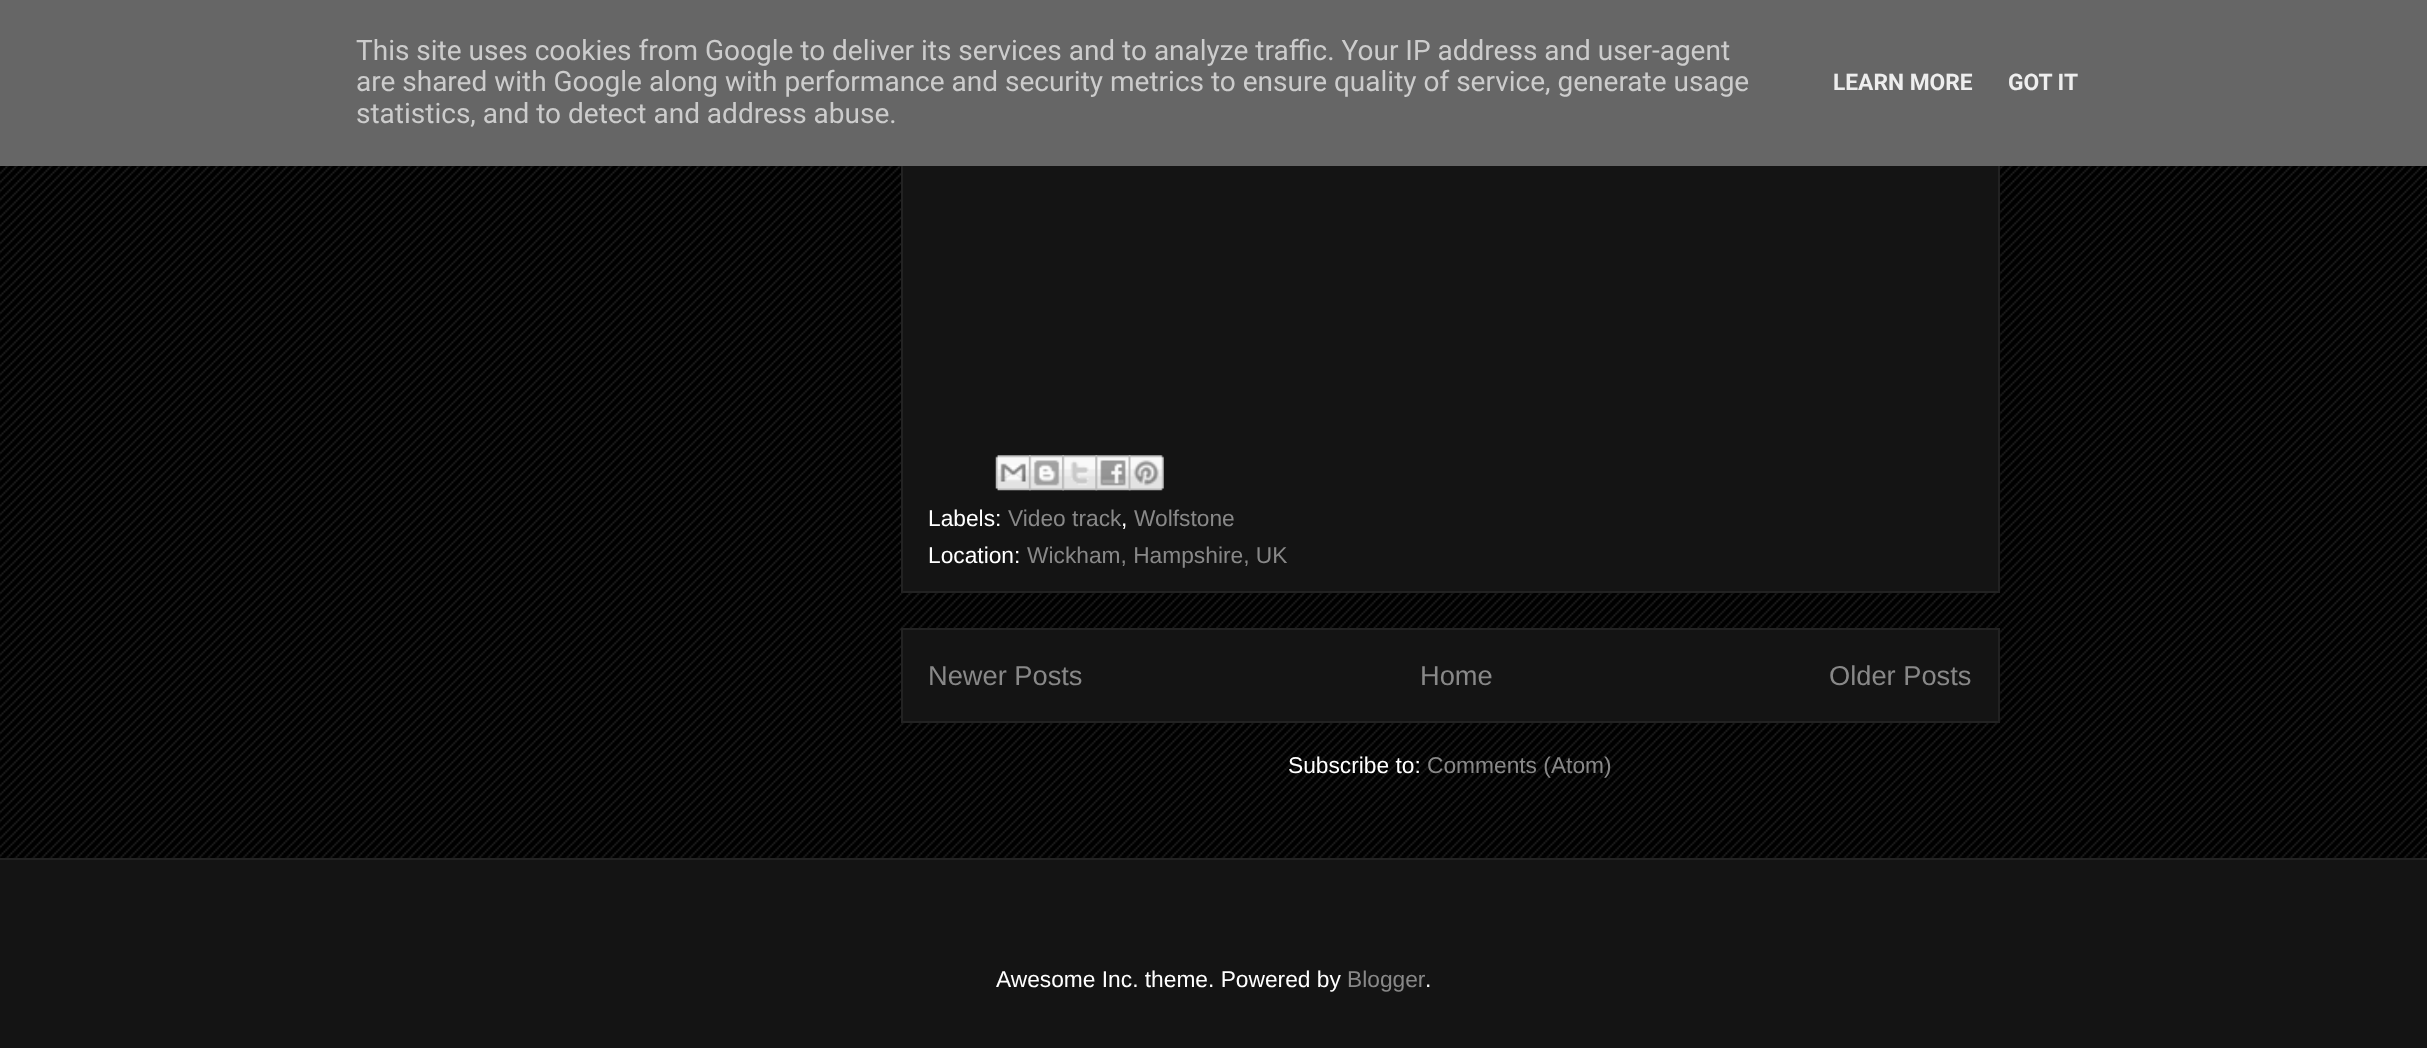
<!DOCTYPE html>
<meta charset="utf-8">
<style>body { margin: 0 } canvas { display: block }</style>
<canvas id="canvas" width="2427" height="1048"></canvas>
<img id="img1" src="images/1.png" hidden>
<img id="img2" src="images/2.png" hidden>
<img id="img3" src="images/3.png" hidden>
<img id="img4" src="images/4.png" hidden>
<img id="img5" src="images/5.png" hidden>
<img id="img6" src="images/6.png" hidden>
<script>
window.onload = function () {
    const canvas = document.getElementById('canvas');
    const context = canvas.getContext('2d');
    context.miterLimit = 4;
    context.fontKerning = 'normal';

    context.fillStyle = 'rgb(0, 0, 0)';
    context.fillRect(0, 0, 2427, 1048);
    context.drawImage(document.getElementById('img1'), 0, 166, 2427, 692);
    context.fillStyle = 'rgb(20, 20, 20)';
    context.fillRect(903, 166, 1095, 425);
    context.strokeStyle = 'rgb(34, 34, 34)';
    context.lineWidth = 2;
    context.strokeRect(902, -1, 1097, 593);
    context.fillStyle = 'rgb(102, 102, 102)';
    context.fillRect(0, 0, 2427, 166);
    context.drawImage(document.getElementById('img2'), 995, 455, 36, 36);
    context.drawImage(document.getElementById('img3'), 1029, 455, 35, 36);
    context.drawImage(document.getElementById('img4'), 1062, 455, 36, 36);
    context.drawImage(document.getElementById('img5'), 1095, 455, 36, 36);
    context.drawImage(document.getElementById('img6'), 1128, 455, 36, 36);
    context.fillStyle = 'rgb(20, 20, 20)';
    context.beginPath();
    context.rect(902, 629, 1097, 93);
    context.fill();
    context.stroke();
    context.fillRect(0, 860, 2427, 188);
    context.fillStyle = 'rgb(34, 34, 34)';
    context.fillRect(0, 858, 2427, 2);
    context.font = '28px Roboto';
    context.fillStyle = 'rgb(204, 204, 204)';
    context.fillText('This site uses cookies from Google to deliver its services and to analyze traffic. Your IP address and user-agent', 356, 60);
    context.fillText('are shared with Google along with performance and security metrics to ensure quality of service, generate usage', 356, 91);
    context.fillText('statistics, and to detect and address abuse.', 356, 123);
    context.font = 'bold 22.75px Roboto';
    context.fillStyle = 'rgb(238, 238, 238)';
    context.fillText('LEARN MORE', 1833, 90);
    context.fillText('GOT IT', 2008, 90);
    context.font = '22.75px Liberation Sans';
    context.fillStyle = 'rgb(255, 255, 255)';
    context.fillText('Labels:', 928, 526);
    context.fillStyle = 'rgb(136, 136, 136)';
    context.fillText('Video track', 1008, 526);
    context.fillStyle = 'rgb(255, 255, 255)';
    context.fillText(',', 1121, 526);
    context.fillStyle = 'rgb(136, 136, 136)';
    context.fillText('Wolfstone', 1134, 526);
    context.fillStyle = 'rgb(255, 255, 255)';
    context.fillText('Location:', 928, 563);
    context.fillStyle = 'rgb(136, 136, 136)';
    context.fillText('Wickham, Hampshire, UK', 1027, 563);
    context.font = '27.25px Liberation Sans';
    context.fillText('Newer Posts', 928, 685);
    context.fillText('Home', 1420, 685);
    context.fillText('Older Posts', 1829, 685);
    context.font = '22.75px Liberation Sans';
    context.fillStyle = 'rgb(255, 255, 255)';
    context.fillText('Subscribe to:', 1288, 773);
    context.fillStyle = 'rgb(136, 136, 136)';
    context.fillText('Comments (Atom)', 1427, 773);
    context.fillStyle = 'rgb(255, 255, 255)';
    context.fillText('Awesome Inc. theme. Powered by', 996, 987);
    context.fillStyle = 'rgb(136, 136, 136)';
    context.fillText('Blogger', 1347, 987);
    context.fillStyle = 'rgb(255, 255, 255)';
    context.fillText('.', 1425, 987);
};
</script>
